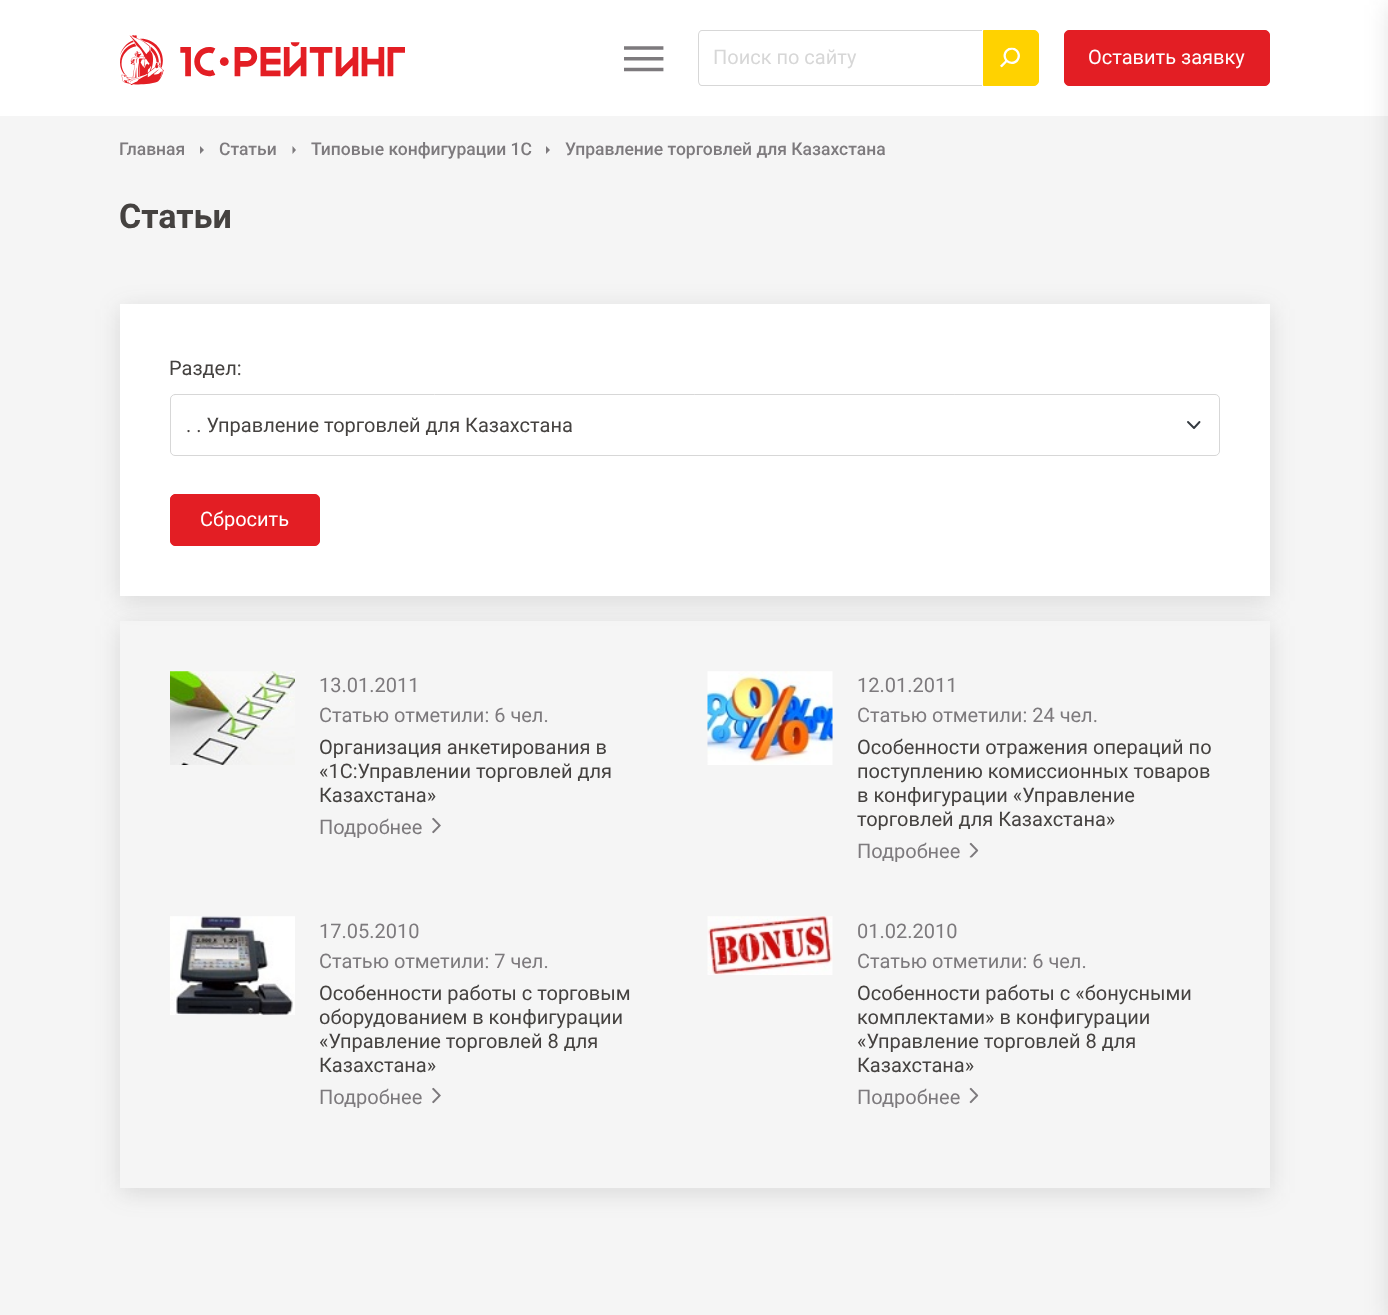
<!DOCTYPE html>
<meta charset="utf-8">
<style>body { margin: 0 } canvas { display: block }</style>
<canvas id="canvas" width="1388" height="1315"></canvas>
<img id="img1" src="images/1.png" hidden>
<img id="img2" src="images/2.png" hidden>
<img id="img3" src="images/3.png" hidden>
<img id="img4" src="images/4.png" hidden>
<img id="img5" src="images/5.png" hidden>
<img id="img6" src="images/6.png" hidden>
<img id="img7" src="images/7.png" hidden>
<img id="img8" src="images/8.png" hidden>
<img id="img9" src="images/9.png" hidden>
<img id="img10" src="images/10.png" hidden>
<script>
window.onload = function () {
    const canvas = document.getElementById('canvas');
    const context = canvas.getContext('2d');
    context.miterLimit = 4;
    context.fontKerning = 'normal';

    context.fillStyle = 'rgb(245, 245, 245)';
    context.fillRect(0, 0, 1388, 1315);
    context.fillStyle = 'rgb(255, 255, 255)';
    context.fillRect(0, 0, 1388, 116);
    context.drawImage(document.getElementById('img1'), 120, 35, 285, 50);
    context.drawImage(document.getElementById('img2'), 624, 46, 40, 26);
    context.fillStyle = 'rgb(215, 215, 215)';
    context.beginPath();
    context.moveTo(702, 30);
    context.lineTo(982, 30);
    context.lineTo(982, 86);
    context.lineTo(702, 86);
    context.bezierCurveTo(700, 86, 698, 84, 698, 81);
    context.lineTo(698, 35);
    context.bezierCurveTo(698, 32, 700, 30, 702, 30);
    context.closePath();
    context.moveTo(702, 31);
    context.lineTo(982, 31);
    context.lineTo(982, 85);
    context.lineTo(702, 85);
    context.bezierCurveTo(700, 85, 699, 83, 699, 81);
    context.lineTo(699, 35);
    context.bezierCurveTo(699, 33, 700, 31, 702, 31);
    context.closePath();
    context.fill('evenodd');
    context.fillStyle = 'rgb(255, 210, 0)';
    context.beginPath();
    context.roundRect(983.5, 30.5, 55, 55, [0, 4.5, 4.5, 0]);
    context.fill();
    context.strokeStyle = 'rgb(255, 210, 0)';
    context.stroke();
    context.drawImage(document.getElementById('img3'), 1000, 47, 20, 21);
    context.fillStyle = 'rgb(227, 30, 36)';
    context.beginPath();
    context.roundRect(1064.5, 30.5, 205, 55, 4.5);
    context.fill();
    context.strokeStyle = 'rgb(227, 30, 36)';
    context.stroke();
    context.fillStyle = 'rgba(60, 60, 60, 0.15)';
    context.filter = 'blur(12.5px)';
    context.beginPath();
    context.rect(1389, 5, 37, 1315);
    context.fill();
    context.filter = 'none';
    context.fillStyle = 'rgb(125, 122, 125)';
    context.beginPath();
    context.moveTo(200, 154);
    context.lineTo(200, 146);
    context.lineTo(204, 150);
    context.closePath();
    context.fill();
    context.beginPath();
    context.moveTo(292.5, 154);
    context.lineTo(292.5, 146);
    context.lineTo(296, 150);
    context.closePath();
    context.fill();
    context.beginPath();
    context.moveTo(546, 154);
    context.lineTo(546, 146);
    context.lineTo(550, 150);
    context.closePath();
    context.fill();
    context.fillStyle = 'rgba(60, 60, 60, 0.15)';
    context.filter = 'blur(12.5px)';
    context.beginPath();
    context.rect(120, 309, 1150, 292);
    context.fill();
    context.filter = 'none';
    context.fillStyle = 'rgb(255, 255, 255)';
    context.fillRect(120, 304, 1150, 292);
    context.beginPath();
    context.moveTo(1188, 422);
    context.lineTo(1194, 428);
    context.lineTo(1199.5, 422);
    context.strokeStyle = 'rgb(52, 58, 64)';
    context.lineWidth = 1.9;
    context.lineCap = 'round';
    context.lineJoin = 'round';
    context.stroke();
    context.beginPath();
    context.roundRect(170.5, 394.5, 1049, 61, 4.5);
    context.strokeStyle = 'rgb(215, 215, 215)';
    context.lineWidth = 1;
    context.lineJoin = 'miter';
    context.stroke();
    context.fillStyle = 'rgb(227, 30, 36)';
    context.beginPath();
    context.roundRect(170.5, 494.5, 149, 51, 4.5);
    context.fill();
    context.strokeStyle = 'rgb(227, 30, 36)';
    context.stroke();
    context.save();
    context.beginPath();
    context.moveTo(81, 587);
    context.lineTo(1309, 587);
    context.lineTo(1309, 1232);
    context.lineTo(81, 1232);
    context.closePath();
    context.moveTo(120, 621);
    context.lineTo(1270, 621);
    context.lineTo(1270, 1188);
    context.lineTo(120, 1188);
    context.closePath();
    context.clip('evenodd');
    context.fillStyle = 'rgba(60, 60, 60, 0.15)';
    context.filter = 'blur(12.5px)';
    context.beginPath();
    context.rect(120, 626, 1150, 567);
    context.fill();
    context.filter = 'none';
    context.restore();
    context.drawImage(document.getElementById('img4'), 170, 671, 125, 94);
    context.drawImage(document.getElementById('img5'), 432, 817, 9, 17);
    context.drawImage(document.getElementById('img6'), 707, 671, 126, 94);
    context.drawImage(document.getElementById('img7'), 969, 842, 10, 16);
    context.drawImage(document.getElementById('img8'), 170, 916, 125, 99);
    context.drawImage(document.getElementById('img5'), 432, 1087, 9, 17);
    context.drawImage(document.getElementById('img9'), 707, 916, 126, 59);
    context.drawImage(document.getElementById('img10'), 969, 1087, 10, 17);
    context.font = '20px Roboto';
    context.fillStyle = 'rgb(215, 215, 215)';
    context.fillText('Поиск по сайту', 713, 64);
    context.fillStyle = 'rgb(255, 255, 255)';
    context.fillText('Оставить заявку', 1088, 64);
    context.font = '500 17.5px Roboto';
    context.fillStyle = 'rgb(125, 122, 125)';
    context.fillText('Главная', 119, 155);
    context.fillText('Статьи', 219, 155);
    context.fillText('Типовые конфигурации 1С', 311, 155);
    context.fillText('Управление торговлей для Казахстана', 565, 155);
    context.font = 'bold 34px Roboto';
    context.fillStyle = 'rgb(69, 66, 64)';
    context.fillText('Статьи', 119, 228);
    context.font = '20px Roboto';
    context.fillText('Раздел:', 169, 375);
    context.fillText('. . Управление торговлей для Казахстана', 186, 432);
    context.fillStyle = 'rgb(255, 255, 255)';
    context.fillText('Сбросить', 200, 526);
    context.fillStyle = 'rgb(125, 122, 125)';
    context.fillText('13.01.2011', 319, 692);
    context.fillText('Статью отметили: 6 чел.', 319, 722);
    context.fillStyle = 'rgb(69, 66, 64)';
    context.fillText('Организация анкетирования в', 319, 754);
    context.fillText('«1С:Управлении торговлей для', 319, 778);
    context.fillText('Казахстана»', 319, 802);
    context.fillStyle = 'rgb(125, 122, 125)';
    context.fillText('Подробнее', 319, 834);
    context.fillText('12.01.2011', 857, 692);
    context.fillText('Статью отметили: 24 чел.', 857, 722);
    context.fillStyle = 'rgb(69, 66, 64)';
    context.fillText('Особенности отражения операций по', 857, 754);
    context.fillText('поступлению комиссионных товаров', 857, 778);
    context.fillText('в конфигурации «Управление', 857, 802);
    context.fillText('торговлей для Казахстана»', 857, 826);
    context.fillStyle = 'rgb(125, 122, 125)';
    context.fillText('Подробнее', 857, 858);
    context.fillText('17.05.2010', 319, 938);
    context.fillText('Статью отметили: 7 чел.', 319, 968);
    context.fillStyle = 'rgb(69, 66, 64)';
    context.fillText('Особенности работы с торговым', 319, 1000);
    context.fillText('оборудованием в конфигурации', 319, 1024);
    context.fillText('«Управление торговлей 8 для', 319, 1048);
    context.fillText('Казахстана»', 319, 1072);
    context.fillStyle = 'rgb(125, 122, 125)';
    context.fillText('Подробнее', 319, 1104);
    context.fillText('01.02.2010', 857, 938);
    context.fillText('Статью отметили: 6 чел.', 857, 968);
    context.fillStyle = 'rgb(69, 66, 64)';
    context.fillText('Особенности работы с «бонусными', 857, 1000);
    context.fillText('комплектами» в конфигурации', 857, 1024);
    context.fillText('«Управление торговлей 8 для', 857, 1048);
    context.fillText('Казахстана»', 857, 1072);
    context.fillStyle = 'rgb(125, 122, 125)';
    context.fillText('Подробнее', 857, 1104);
};
</script>
